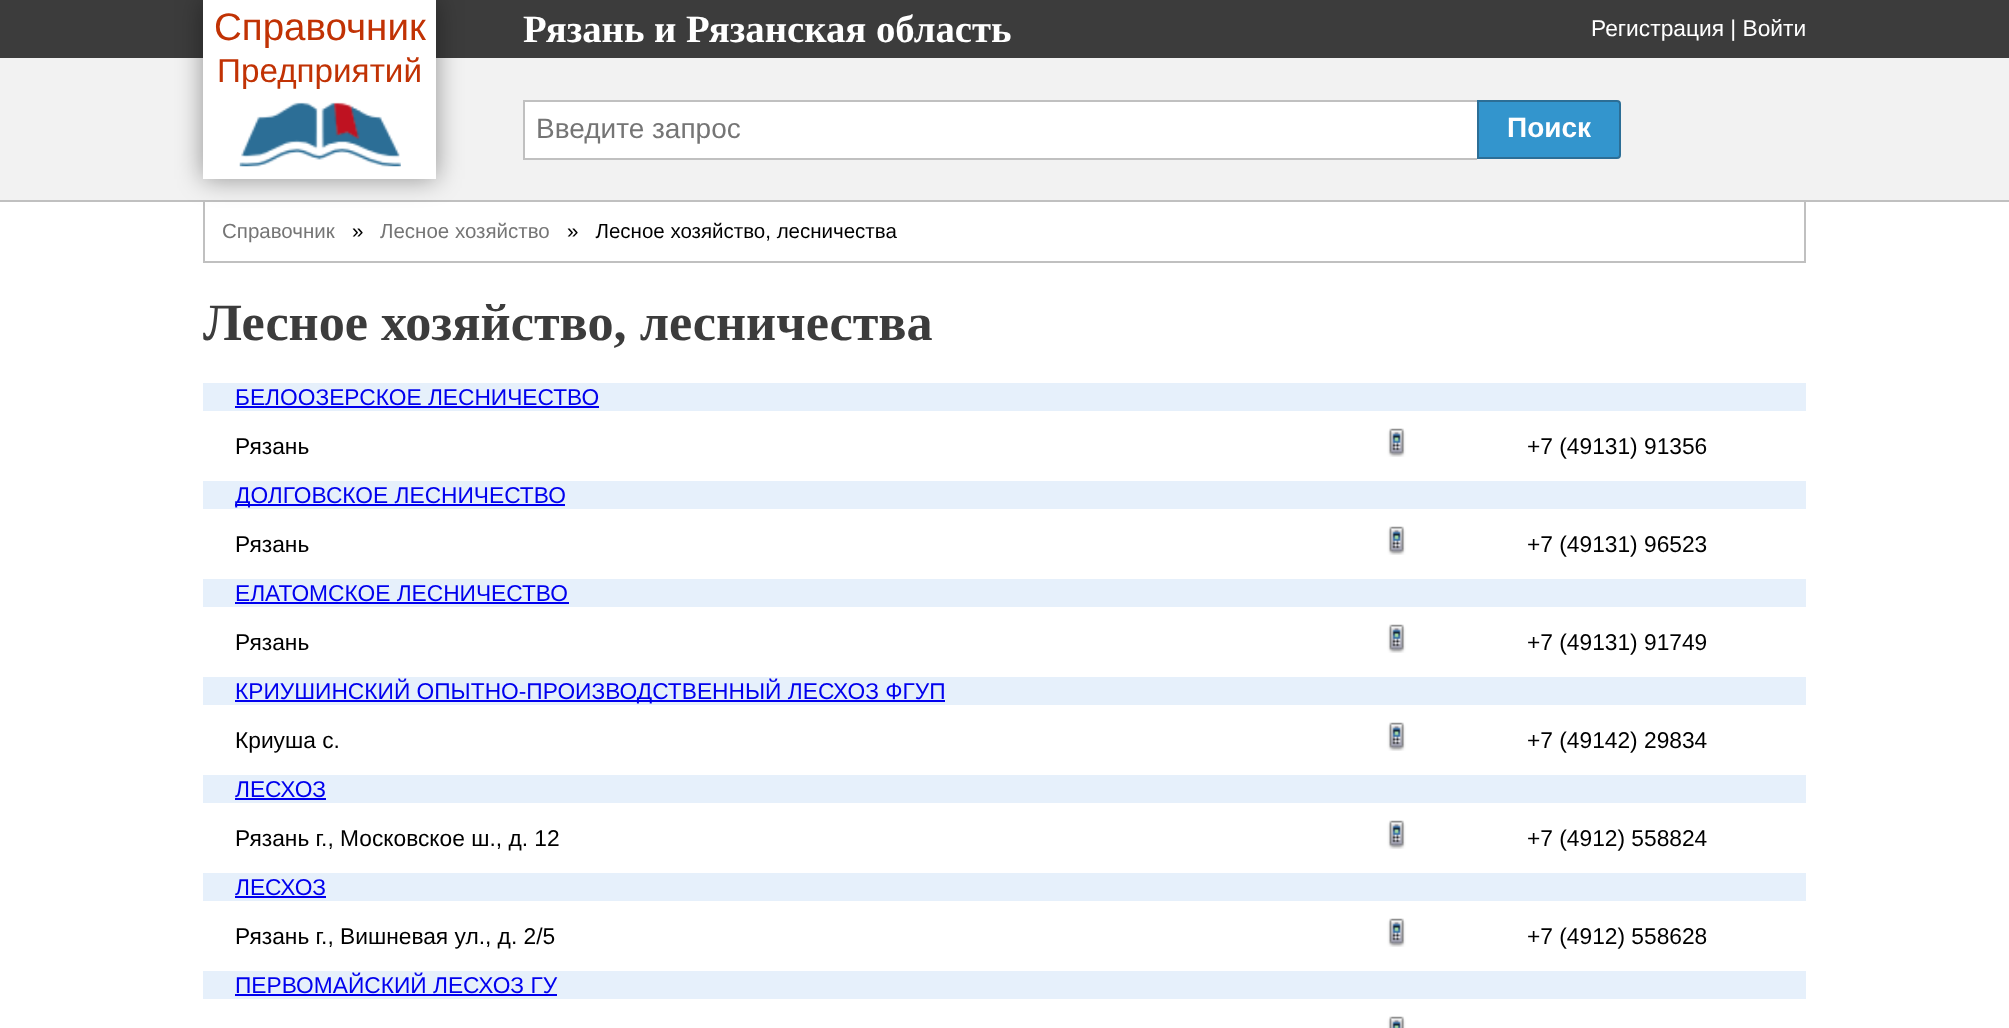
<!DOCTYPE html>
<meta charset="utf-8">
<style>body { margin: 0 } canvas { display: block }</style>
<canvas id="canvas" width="2009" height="1028"></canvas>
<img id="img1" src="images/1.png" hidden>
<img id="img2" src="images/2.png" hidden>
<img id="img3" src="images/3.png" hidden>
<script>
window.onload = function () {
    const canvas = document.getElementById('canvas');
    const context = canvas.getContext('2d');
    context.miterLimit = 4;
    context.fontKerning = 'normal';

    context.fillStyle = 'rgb(255, 255, 255)';
    context.fillRect(0, 0, 2009, 1028);
    context.fillStyle = 'rgb(60, 60, 60)';
    context.fillRect(0, 0, 2009, 58);
    context.fillStyle = 'rgb(242, 242, 242)';
    context.fillRect(0, 58, 2009, 142);
    context.fillStyle = 'rgb(192, 192, 192)';
    context.fillRect(0, 200, 2009, 2);
    context.fillRect(1804, 201, 2, 62);
    context.fillRect(203, 261, 1603, 2);
    context.fillRect(203, 201, 2, 62);
    context.fillStyle = 'rgba(0, 0, 0, 0.4)';
    context.filter = 'blur(13px)';
    context.beginPath();
    context.rect(203, 0, 233, 179);
    context.fill();
    context.filter = 'none';
    context.fillStyle = 'rgb(255, 255, 255)';
    context.fillRect(203, 0, 233, 179);
    context.drawImage(document.getElementById('img1'), 239, 102, 162, 65);
    context.fillRect(525, 102, 952, 56);
    context.fillStyle = 'rgb(192, 192, 192)';
    context.fillRect(523, 100, 954, 2);
    context.fillRect(523, 158, 954, 2);
    context.fillRect(523, 100, 2, 59);
    context.fillStyle = 'rgb(51, 149, 205)';
    context.beginPath();
    context.roundRect(1478, 101, 142, 57, [0, 3, 3, 0]);
    context.fill();
    context.strokeStyle = 'rgb(44, 110, 150)';
    context.lineWidth = 2;
    context.stroke();
    context.fillStyle = 'rgb(230, 240, 251)';
    context.fillRect(203, 383, 1603, 28);
    context.fillStyle = 'rgb(0, 0, 238)';
    context.fillRect(235, 406, 364, 2);
    context.drawImage(document.getElementById('img2'), 1387, 428, 19, 29);
    context.fillStyle = 'rgb(230, 240, 251)';
    context.fillRect(203, 481, 1603, 28);
    context.fillStyle = 'rgb(0, 0, 238)';
    context.fillRect(235, 504, 330, 2);
    context.drawImage(document.getElementById('img2'), 1387, 526, 19, 29);
    context.fillStyle = 'rgb(230, 240, 251)';
    context.fillRect(203, 579, 1603, 28);
    context.fillStyle = 'rgb(0, 0, 238)';
    context.fillRect(235, 602, 334, 2);
    context.drawImage(document.getElementById('img2'), 1387, 624, 19, 29);
    context.fillStyle = 'rgb(230, 240, 251)';
    context.fillRect(203, 677, 1603, 28);
    context.fillStyle = 'rgb(0, 0, 238)';
    context.fillRect(235, 700, 710, 2);
    context.drawImage(document.getElementById('img2'), 1387, 722, 19, 29);
    context.fillStyle = 'rgb(230, 240, 251)';
    context.fillRect(203, 775, 1603, 28);
    context.fillStyle = 'rgb(0, 0, 238)';
    context.fillRect(235, 798, 91, 2);
    context.drawImage(document.getElementById('img2'), 1387, 820, 19, 29);
    context.fillStyle = 'rgb(230, 240, 251)';
    context.fillRect(203, 873, 1603, 28);
    context.fillStyle = 'rgb(0, 0, 238)';
    context.fillRect(235, 896, 91, 2);
    context.drawImage(document.getElementById('img2'), 1387, 918, 19, 29);
    context.fillStyle = 'rgb(230, 240, 251)';
    context.fillRect(203, 971, 1603, 28);
    context.fillStyle = 'rgb(0, 0, 238)';
    context.fillRect(235, 994, 322, 2);
    context.drawImage(document.getElementById('img3'), 1387, 1016, 19, 12);
    context.font = '38.5px Liberation Sans';
    context.fillStyle = 'rgb(193, 50, 4)';
    context.fillText('Справочник', 214, 40);
    context.font = '33.25px Liberation Sans';
    context.fillText('Предприятий', 217, 82);
    context.font = 'bold 38.75px Liberation Serif';
    context.fillStyle = 'rgb(255, 255, 255)';
    context.fillText('Рязань и Рязанская область', 523, 42);
    context.font = '22.75px Liberation Sans';
    context.fillText('Регистрация | Войти', 1591, 36);
    context.font = '28px Liberation Sans';
    context.fillStyle = 'rgb(117, 117, 117)';
    context.fillText('Введите запрос', 536, 138);
    context.font = 'bold 28px Liberation Sans';
    context.fillStyle = 'rgb(255, 255, 255)';
    context.fillText('Поиск', 1507, 137);
    context.font = '20.5px Liberation Sans';
    context.fillStyle = 'rgb(117, 117, 117)';
    context.fillText('Справочник', 222, 238);
    context.fillStyle = 'rgb(0, 0, 0)';
    context.fillText('»', 352, 238);
    context.fillStyle = 'rgb(117, 117, 117)';
    context.fillText('Лесное хозяйство', 380, 238);
    context.fillStyle = 'rgb(0, 0, 0)';
    context.fillText('»   Лесное хозяйство, лесничества', 567, 238);
    context.font = 'bold 52.25px Liberation Serif';
    context.fillStyle = 'rgb(60, 60, 60)';
    context.fillText('Лесное хозяйство, лесничества', 203, 340);
    context.font = '22.75px Liberation Sans';
    context.fillStyle = 'rgb(0, 0, 238)';
    context.fillText('БЕЛООЗЕРСКОЕ ЛЕСНИЧЕСТВО', 235, 405);
    context.fillStyle = 'rgb(0, 0, 0)';
    context.fillText('Рязань', 235, 454);
    context.fillText('+7 (49131) 91356', 1527, 454);
    context.fillStyle = 'rgb(0, 0, 238)';
    context.fillText('ДОЛГОВСКОЕ ЛЕСНИЧЕСТВО', 235, 503);
    context.fillStyle = 'rgb(0, 0, 0)';
    context.fillText('Рязань', 235, 552);
    context.fillText('+7 (49131) 96523', 1527, 552);
    context.fillStyle = 'rgb(0, 0, 238)';
    context.fillText('ЕЛАТОМСКОЕ ЛЕСНИЧЕСТВО', 235, 601);
    context.fillStyle = 'rgb(0, 0, 0)';
    context.fillText('Рязань', 235, 650);
    context.fillText('+7 (49131) 91749', 1527, 650);
    context.fillStyle = 'rgb(0, 0, 238)';
    context.fillText('КРИУШИНСКИЙ ОПЫТНО-ПРОИЗВОДСТВЕННЫЙ ЛЕСХОЗ ФГУП', 235, 699);
    context.fillStyle = 'rgb(0, 0, 0)';
    context.fillText('Криуша с.', 235, 748);
    context.fillText('+7 (49142) 29834', 1527, 748);
    context.fillStyle = 'rgb(0, 0, 238)';
    context.fillText('ЛЕСХОЗ', 235, 797);
    context.fillStyle = 'rgb(0, 0, 0)';
    context.fillText('Рязань г., Московское ш., д. 12', 235, 846);
    context.fillText('+7 (4912) 558824', 1527, 846);
    context.fillStyle = 'rgb(0, 0, 238)';
    context.fillText('ЛЕСХОЗ', 235, 895);
    context.fillStyle = 'rgb(0, 0, 0)';
    context.fillText('Рязань г., Вишневая ул., д. 2/5', 235, 944);
    context.fillText('+7 (4912) 558628', 1527, 944);
    context.fillStyle = 'rgb(0, 0, 238)';
    context.fillText('ПЕРВОМАЙСКИЙ ЛЕСХОЗ ГУ', 235, 993);
};
</script>
